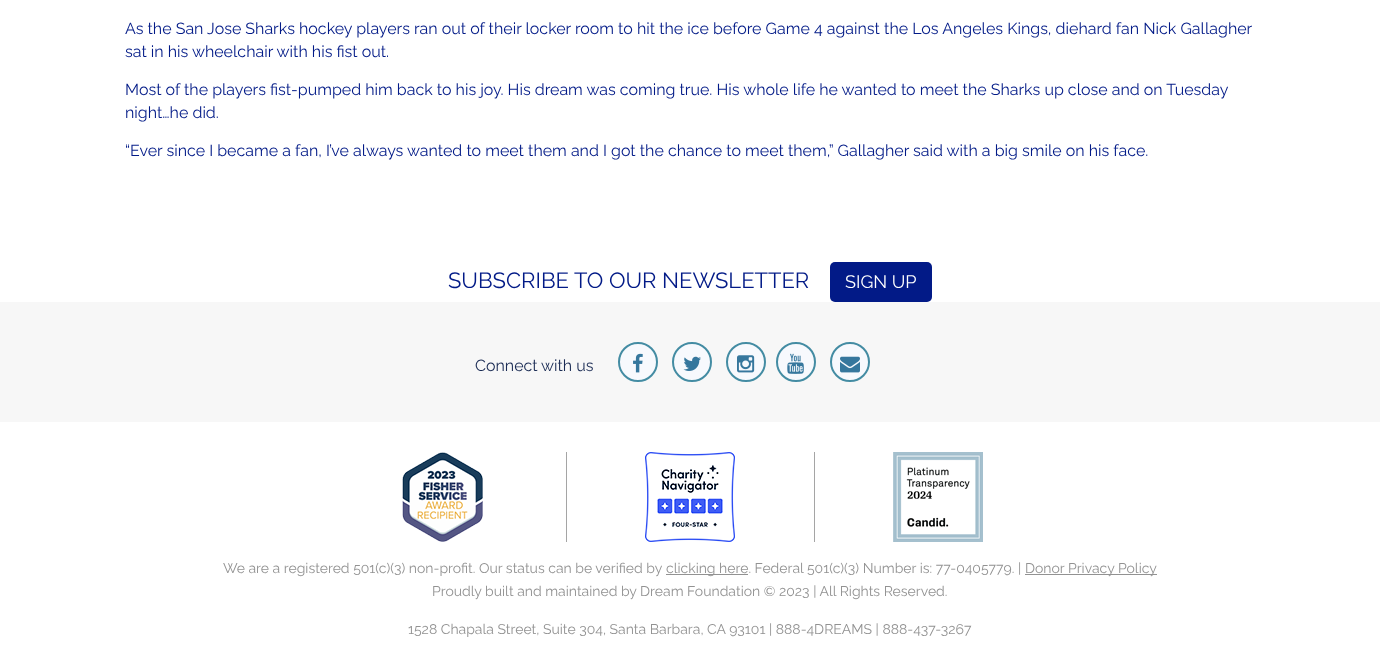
<!DOCTYPE html>
<meta charset="utf-8">
<style>body { margin: 0 } canvas { display: block }</style>
<canvas id="canvas" width="1380" height="647"></canvas>
<img id="img1" src="images/1.png" hidden>
<img id="img2" src="images/2.png" hidden>
<img id="img3" src="images/3.png" hidden>
<img id="img4" src="images/4.png" hidden>
<img id="img5" src="images/5.png" hidden>
<img id="img6" src="images/6.png" hidden>
<img id="img7" src="images/7.png" hidden>
<img id="img8" src="images/8.png" hidden>
<script>
window.onload = function () {
    const canvas = document.getElementById('canvas');
    const context = canvas.getContext('2d');
    context.miterLimit = 4;
    context.fontKerning = 'normal';

    context.fillStyle = 'rgb(255, 255, 255)';
    context.fillRect(0, 0, 1380, 647);
    context.fillStyle = 'rgb(2, 26, 135)';
    context.beginPath();
    context.roundRect(830, 262, 102, 40, 5);
    context.fill();
    context.fillStyle = 'rgb(247, 247, 247)';
    context.fillRect(0, 302, 1380, 120);
    context.fillStyle = 'rgb(247, 249, 253)';
    context.beginPath();
    context.arc(638, 362, 19, 0, 2 * Math.PI);
    context.fill();
    context.strokeStyle = 'rgb(68, 140, 163)';
    context.lineWidth = 2;
    context.stroke();
    context.drawImage(document.getElementById('img1'), 633, 353, 10, 20);
    context.beginPath();
    context.arc(692, 362, 19, 0, 2 * Math.PI);
    context.fill();
    context.stroke();
    context.drawImage(document.getElementById('img2'), 683, 356, 18, 15);
    context.beginPath();
    context.arc(746, 362, 19, 0, 2 * Math.PI);
    context.fill();
    context.stroke();
    context.drawImage(document.getElementById('img3'), 737, 355, 18, 18);
    context.beginPath();
    context.arc(796, 362, 19, 0, 2 * Math.PI);
    context.fill();
    context.stroke();
    context.drawImage(document.getElementById('img4'), 787, 353, 17, 21);
    context.beginPath();
    context.arc(850, 362, 19, 0, 2 * Math.PI);
    context.fill();
    context.stroke();
    context.drawImage(document.getElementById('img5'), 840, 356, 20, 17);
    context.drawImage(document.getElementById('img6'), 402, 452, 81, 90);
    context.fillStyle = 'rgb(165, 165, 165)';
    context.fillRect(566, 452, 1, 90);
    context.drawImage(document.getElementById('img7'), 645, 452, 90, 90);
    context.fillRect(814, 452, 1, 90);
    context.drawImage(document.getElementById('img8'), 893, 452, 90, 90);
    context.fillStyle = 'rgb(146, 146, 146)';
    context.fillRect(666, 574, 82, 1);
    context.fillRect(1025, 574, 132, 1);
    context.font = '100 16px Raleway';
    context.fillStyle = 'rgb(2, 26, 135)';
    context.fillText('As the San Jose Sharks hockey players ran out of their locker room to hit the ice before Game 4 against the Los Angeles Kings, diehard fan Nick Gallagher', 125, 34);
    context.fillText('sat in his wheelchair with his fist out.', 125, 57);
    context.fillText('Most of the players fist-pumped him back to his joy. His dream was coming true. His whole life he wanted to meet the Sharks up close and on Tuesday', 125, 95);
    context.fillText('night…he did.', 125, 118);
    context.fillText('“Ever since I became a fan, I’ve always wanted to meet them and I got the chance to meet them,” Gallagher said with a big smile on his face.', 125, 156);
    context.font = '100 22px Raleway';
    context.fillText('SUBSCRIBE TO OUR NEWSLETTER', 448, 288);
    context.font = '100 18px Raleway';
    context.fillStyle = 'rgb(255, 255, 255)';
    context.fillText('SIGN UP', 845, 288);
    context.font = '100 16px Raleway';
    context.fillStyle = 'rgb(25, 42, 83)';
    context.fillText('Connect', 475, 371);
    context.fillText('with us', 541, 371);
    context.font = '100 14px Raleway';
    context.fillStyle = 'rgb(146, 146, 146)';
    context.fillText('We are a registered 501(c)(3) non-profit. Our status can be verified by', 223, 573);
    context.fillText('clicking here. Federal 501(c)(3) Number is: 77-0405779. |', 666, 573);
    context.fillText('Donor Privacy Policy', 1025, 573);
    context.fillText('Proudly built and maintained by Dream Foundation © 2023 | All Rights Reserved.', 432, 596);
    context.fillText('1528 Chapala Street, Suite 304, Santa Barbara, CA 93101 | 888-4DREAMS | 888-437-3267', 408, 634);
};
</script>
